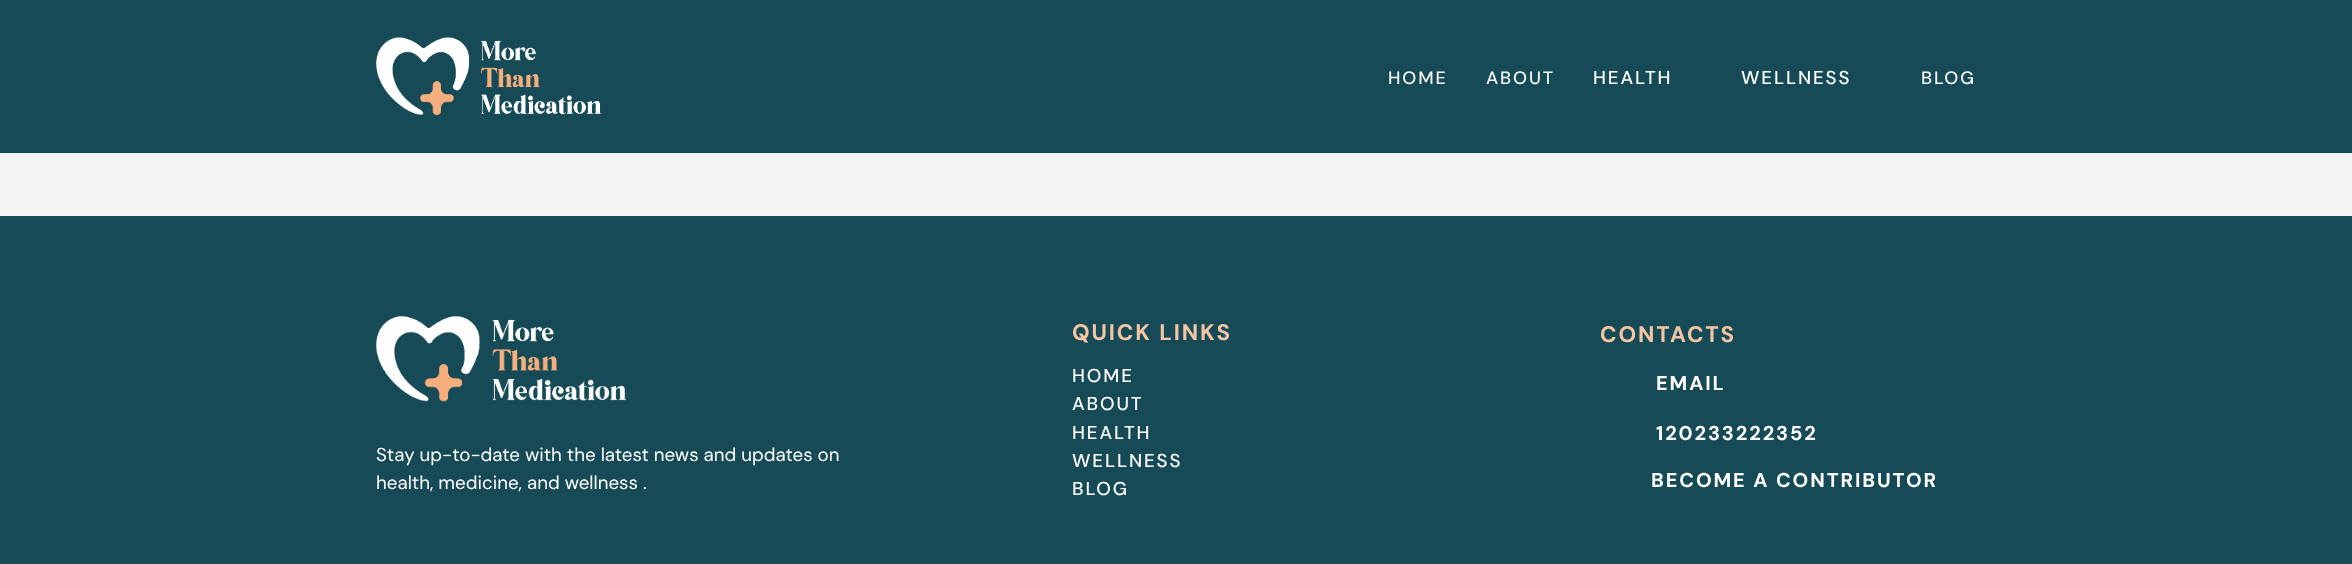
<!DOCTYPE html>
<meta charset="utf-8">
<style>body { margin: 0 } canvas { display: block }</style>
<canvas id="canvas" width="2352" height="564"></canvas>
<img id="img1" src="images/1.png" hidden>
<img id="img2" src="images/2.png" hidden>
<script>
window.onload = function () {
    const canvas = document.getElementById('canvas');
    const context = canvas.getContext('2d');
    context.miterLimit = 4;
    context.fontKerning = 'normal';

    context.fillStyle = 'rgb(245, 245, 245)';
    context.fillRect(0, 0, 2352, 564);
    context.fillStyle = 'rgb(21, 74, 86)';
    context.fillRect(0, 0, 2352, 153);
    context.drawImage(document.getElementById('img1'), 376, 37, 226, 78);
    context.fillRect(0, 216, 2352, 348);
    context.drawImage(document.getElementById('img2'), 376, 316, 251, 86);
    context.letterSpacing = '1.9px';
    context.font = '500 18px DM Sans';
    context.fillStyle = 'rgb(245, 245, 245)';
    context.fillText('HOME', 1388, 84);
    context.fillText('ABOUT', 1486, 84);
    context.font = '500 18.75px DM Sans';
    context.fillStyle = 'rgb(255, 255, 255)';
    context.fillText('HEALTH', 1593, 84);
    context.fillText('WELLNESS', 1741, 84);
    context.font = '500 18px DM Sans';
    context.fillStyle = 'rgb(245, 245, 245)';
    context.fillText('BLOG', 1921, 84);
    context.font = 'bold 22.5px DM Sans';
    context.fillStyle = 'rgb(245, 197, 164)';
    context.fillText('QUICK LINKS', 1072, 340);
    context.font = '500 18.75px DM Sans';
    context.fillStyle = 'rgb(255, 255, 255)';
    context.fillText('HOME', 1072, 382);
    context.fillText('ABOUT', 1072, 410);
    context.fillText('HEALTH', 1072, 439);
    context.fillText('WELLNESS', 1072, 467);
    context.fillText('BLOG', 1072, 495);
    context.font = 'bold 22.5px DM Sans';
    context.fillStyle = 'rgb(245, 197, 164)';
    context.fillText('CONTACTS', 1600, 342);
    context.font = 'bold 20px DM Sans';
    context.fillStyle = 'rgb(255, 255, 255)';
    context.fillText('EMAIL', 1656, 390);
    context.fillText('120233222352', 1656, 440);
    context.fillText('BECOME A CONTRIBUTOR', 1651, 487);
    context.letterSpacing = '0px';
    context.font = '18.75px DM Sans';
    context.fillText('Stay up-to-date with the latest news and updates on', 376, 461);
    context.fillText('health, medicine, and wellness .', 376, 489);
};
</script>
